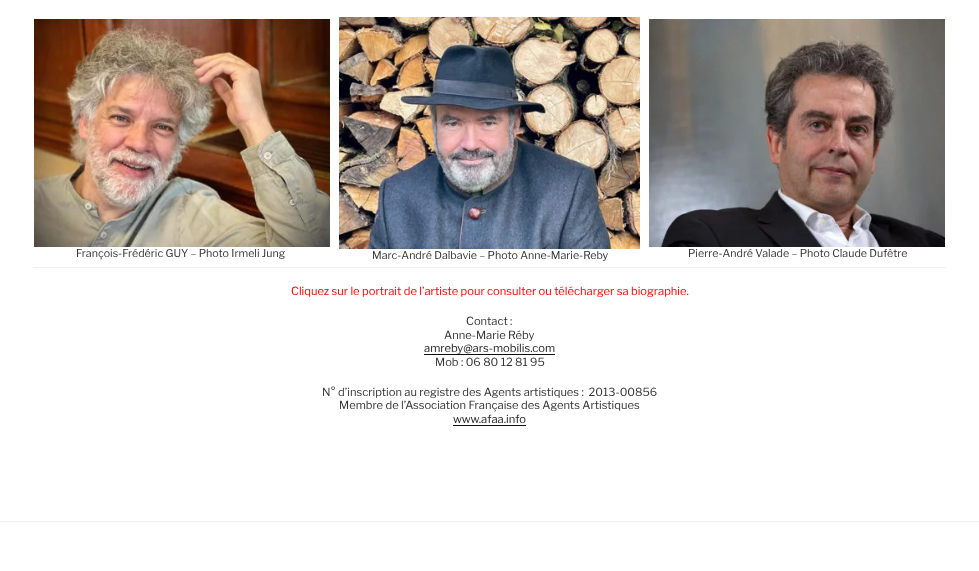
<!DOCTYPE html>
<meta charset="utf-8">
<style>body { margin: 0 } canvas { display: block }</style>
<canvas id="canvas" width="979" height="571"></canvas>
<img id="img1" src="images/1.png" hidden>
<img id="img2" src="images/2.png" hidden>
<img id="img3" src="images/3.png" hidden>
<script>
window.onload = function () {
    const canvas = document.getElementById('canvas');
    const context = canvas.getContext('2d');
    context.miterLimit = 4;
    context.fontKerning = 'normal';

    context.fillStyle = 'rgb(255, 255, 255)';
    context.fillRect(0, 0, 979, 571);
    context.fillStyle = 'rgb(238, 238, 238)';
    context.fillRect(33, 267, 913, 1);
    context.drawImage(document.getElementById('img1'), 34, 19, 296, 228);
    context.drawImage(document.getElementById('img2'), 339, 17, 301, 232);
    context.drawImage(document.getElementById('img3'), 649, 19, 296, 228);
    context.fillStyle = 'rgb(15, 15, 15)';
    context.fillRect(424, 354, 131, 1);
    context.fillRect(453, 425, 73, 1);
    context.fillStyle = 'rgb(238, 238, 238)';
    context.fillRect(0, 521, 979, 1);
    context.font = '10.7px Libre Franklin';
    context.fillStyle = 'rgb(51, 51, 51)';
    context.fillText('François-Frédéric GUY – Photo Irmeli Jung', 76, 257);
    context.fillText('Marc-André Dalbavie – Photo Anne-Marie-Reby', 372, 259);
    context.fillText('Pierre-André Valade – Photo Claude Dufêtre', 688, 257);
    context.font = '11.2px Libre Franklin';
    context.fillStyle = 'rgb(255, 0, 0)';
    context.fillText('Cliquez sur le portrait de l’artiste pour consulter ou télécharger sa biographie.', 291, 295);
    context.fillStyle = 'rgb(51, 51, 51)';
    context.fillText('Contact :', 466, 325);
    context.fillText('Anne-Marie Réby', 444, 339);
    context.fillStyle = 'rgb(34, 34, 34)';
    context.fillText('amreby@ars-mobilis.com', 424, 352);
    context.fillStyle = 'rgb(51, 51, 51)';
    context.fillText('Mob : 06 80 12 81 95', 435, 366);
    context.fillText('N° d’inscription au registre des Agents artistiques :  2013-00856', 322, 396);
    context.fillText('Membre de l’Association Française des Agents Artistiques', 339, 409);
    context.fillStyle = 'rgb(34, 34, 34)';
    context.fillText('www.afaa.info', 453, 423);
};
</script>
